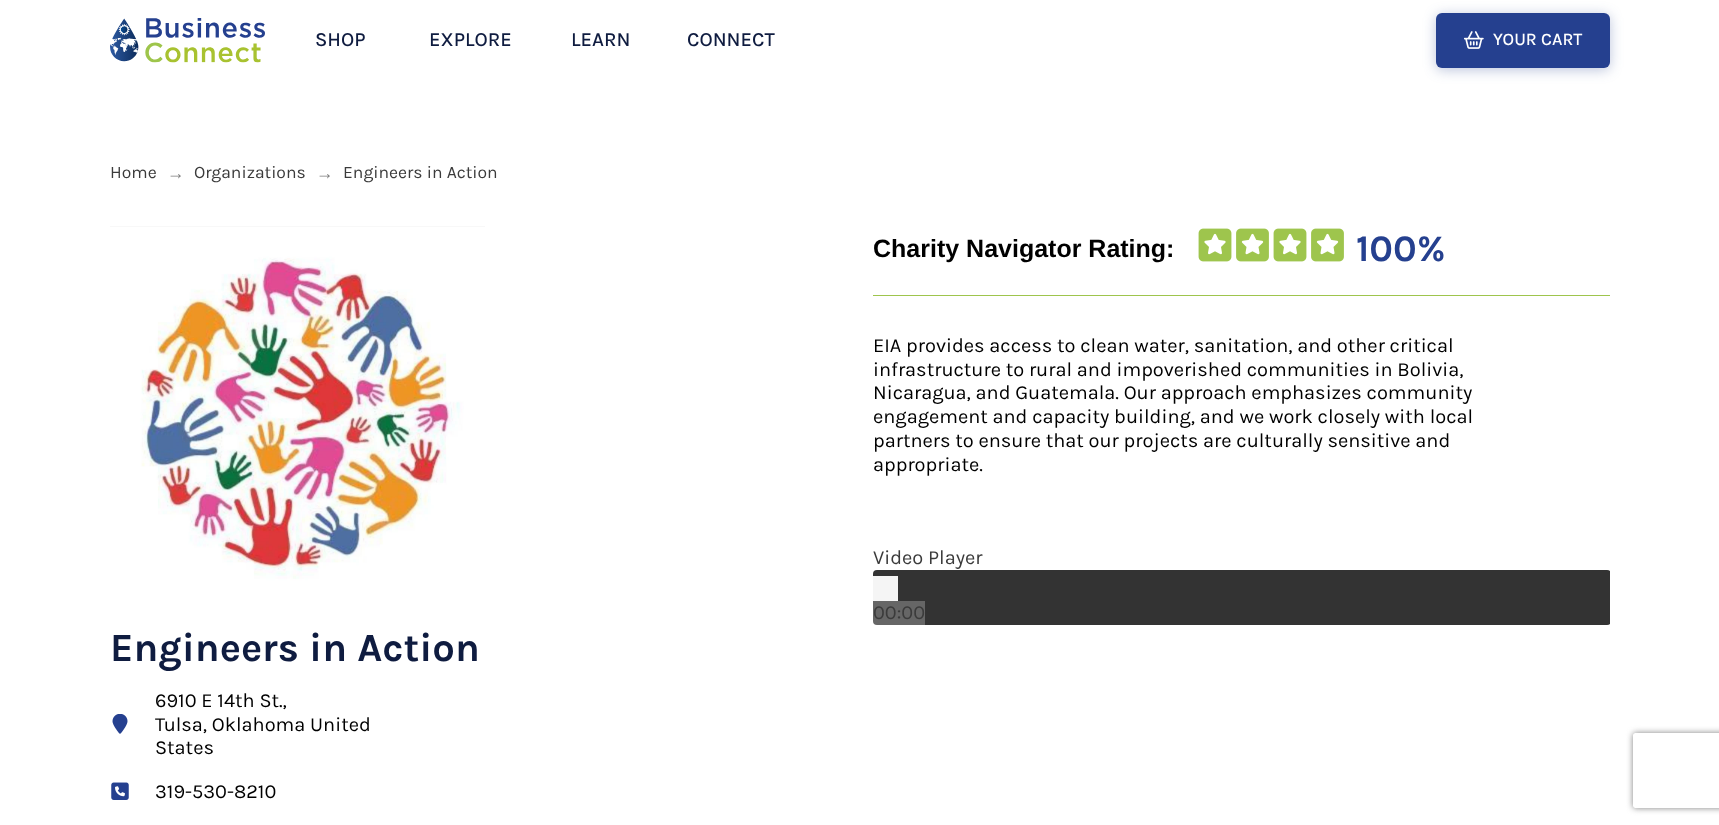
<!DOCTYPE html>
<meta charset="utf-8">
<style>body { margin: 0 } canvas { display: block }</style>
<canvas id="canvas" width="1719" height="825"></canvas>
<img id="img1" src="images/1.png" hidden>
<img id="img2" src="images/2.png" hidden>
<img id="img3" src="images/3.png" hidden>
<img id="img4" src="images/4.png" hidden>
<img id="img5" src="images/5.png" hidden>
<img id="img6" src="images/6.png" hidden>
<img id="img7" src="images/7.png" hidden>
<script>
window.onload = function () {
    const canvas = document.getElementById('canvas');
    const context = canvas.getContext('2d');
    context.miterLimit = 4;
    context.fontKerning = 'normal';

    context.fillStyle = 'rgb(255, 255, 255)';
    context.fillRect(0, 0, 1719, 825);
    context.drawImage(document.getElementById('img1'), 110, 18, 155, 45);
    context.fillStyle = 'rgba(37, 64, 143, 0.31)';
    context.filter = 'blur(6.5px)';
    context.beginPath();
    context.roundRect(1436, 15, 174, 55, 6);
    context.fill();
    context.filter = 'none';
    context.fillStyle = 'rgb(37, 64, 143)';
    context.beginPath();
    context.roundRect(1436, 13, 174, 55, 6);
    context.fill();
    context.drawImage(document.getElementById('img2'), 1464, 31, 20, 18);
    context.drawImage(document.getElementById('img3'), 1198, 228, 34, 34);
    context.drawImage(document.getElementById('img4'), 1236, 228, 33, 34);
    context.drawImage(document.getElementById('img3'), 1273, 228, 34, 34);
    context.drawImage(document.getElementById('img4'), 1311, 228, 33, 34);
    context.fillStyle = 'rgb(158, 197, 77)';
    context.fillRect(873, 295, 737, 1);
    context.save();
    context.beginPath();
    context.rect(873, 546, 737, 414);
    context.clip();
    context.fillStyle = 'rgb(51, 51, 51)';
    context.beginPath();
    context.roundRect(873, 570, 738, 55, 4);
    context.fill();
    context.restore();
    context.fillStyle = 'rgb(245, 245, 245)';
    context.fillRect(873, 576, 25, 25);
    context.fillStyle = 'rgba(255, 255, 255, 0.25)';
    context.fillRect(873, 601, 52, 24);
    context.fillStyle = 'rgb(238, 238, 238)';
    context.fillRect(110, 226, 375, 1);
    context.drawImage(document.getElementById('img5'), 110, 226, 375, 375);
    context.drawImage(document.getElementById('img6'), 112, 714, 16, 20);
    context.drawImage(document.getElementById('img7'), 111, 782, 18, 18);
    context.save();
    context.beginPath();
    context.moveTo(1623, 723);
    context.lineTo(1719, 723);
    context.lineTo(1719, 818);
    context.lineTo(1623, 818);
    context.closePath();
    context.moveTo(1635.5, 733);
    context.lineTo(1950.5, 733);
    context.bezierCurveTo(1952, 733, 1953, 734, 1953, 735.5);
    context.lineTo(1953, 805.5);
    context.bezierCurveTo(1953, 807, 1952, 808, 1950.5, 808);
    context.lineTo(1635.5, 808);
    context.bezierCurveTo(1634, 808, 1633, 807, 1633, 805.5);
    context.lineTo(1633, 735.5);
    context.bezierCurveTo(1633, 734, 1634, 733, 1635.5, 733);
    context.closePath();
    context.clip('evenodd');
    context.fillStyle = 'rgb(128, 128, 128)';
    context.filter = 'blur(3px)';
    context.beginPath();
    context.roundRect(1633, 733, 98, 75, 2.5);
    context.fill();
    context.filter = 'none';
    context.restore();
    context.font = '500 20px Karla';
    context.fillStyle = 'rgb(15, 28, 64)';
    context.fillText('SHOP', 315, 46);
    context.fillText('EXPLORE', 429, 46);
    context.fillText('LEARN', 571, 46);
    context.fillText('CONNECT', 687, 46);
    context.font = '500 17.5px Karla';
    context.fillStyle = 'rgb(255, 255, 255)';
    context.fillText('YOUR CART', 1493, 45);
    context.font = '17.5px Karla';
    context.fillStyle = 'rgb(59, 59, 59)';
    context.fillText('Home', 110, 178);
    context.font = '17.5px Liberation Serif';
    context.fillStyle = 'rgb(128, 128, 128)';
    context.fillText('→', 167, 179);
    context.font = '17.5px Karla';
    context.fillStyle = 'rgb(59, 59, 59)';
    context.fillText('Organizations', 194, 178);
    context.font = '17.5px Liberation Serif';
    context.fillStyle = 'rgb(128, 128, 128)';
    context.fillText('→', 316, 179);
    context.font = '17.5px Karla';
    context.fillStyle = 'rgb(59, 59, 59)';
    context.fillText('Engineers in Action', 343, 178);
    context.font = 'bold 25px Liberation Sans';
    context.fillStyle = 'rgb(0, 0, 0)';
    context.fillText('Charity Navigator Rating:', 873, 257);
    context.font = 'bold 37.5px Karla';
    context.fillStyle = 'rgb(37, 64, 143)';
    context.fillText('100%', 1356, 261);
    context.font = '20px Karla';
    context.fillStyle = 'rgb(0, 0, 0)';
    context.fillText('EIA provides access to clean water, sanitation, and other critical', 873, 352);
    context.fillText('infrastructure to rural and impoverished communities in Bolivia,', 873, 376);
    context.fillText('Nicaragua, and Guatemala. Our approach emphasizes community', 873, 399);
    context.fillText('engagement and capacity building, and we work closely with local', 873, 423);
    context.fillText('partners to ensure that our projects are culturally sensitive and', 873, 447);
    context.fillText('appropriate.', 873, 471);
    context.fillStyle = 'rgb(59, 59, 59)';
    context.fillText('Video Player', 873, 564);
    context.fillText('00:00', 873, 619);
    context.font = 'bold 40px Karla';
    context.fillStyle = 'rgb(15, 28, 64)';
    context.fillText('Engineers in Action', 110, 661);
    context.font = '20px Karla';
    context.fillStyle = 'rgb(0, 0, 0)';
    context.fillText('6910 E 14th St.,', 155, 707);
    context.fillText('Tulsa, Oklahoma United', 155, 731);
    context.fillText('States', 155, 754);
    context.fillText('319-530-8210', 155, 798);
};
</script>
